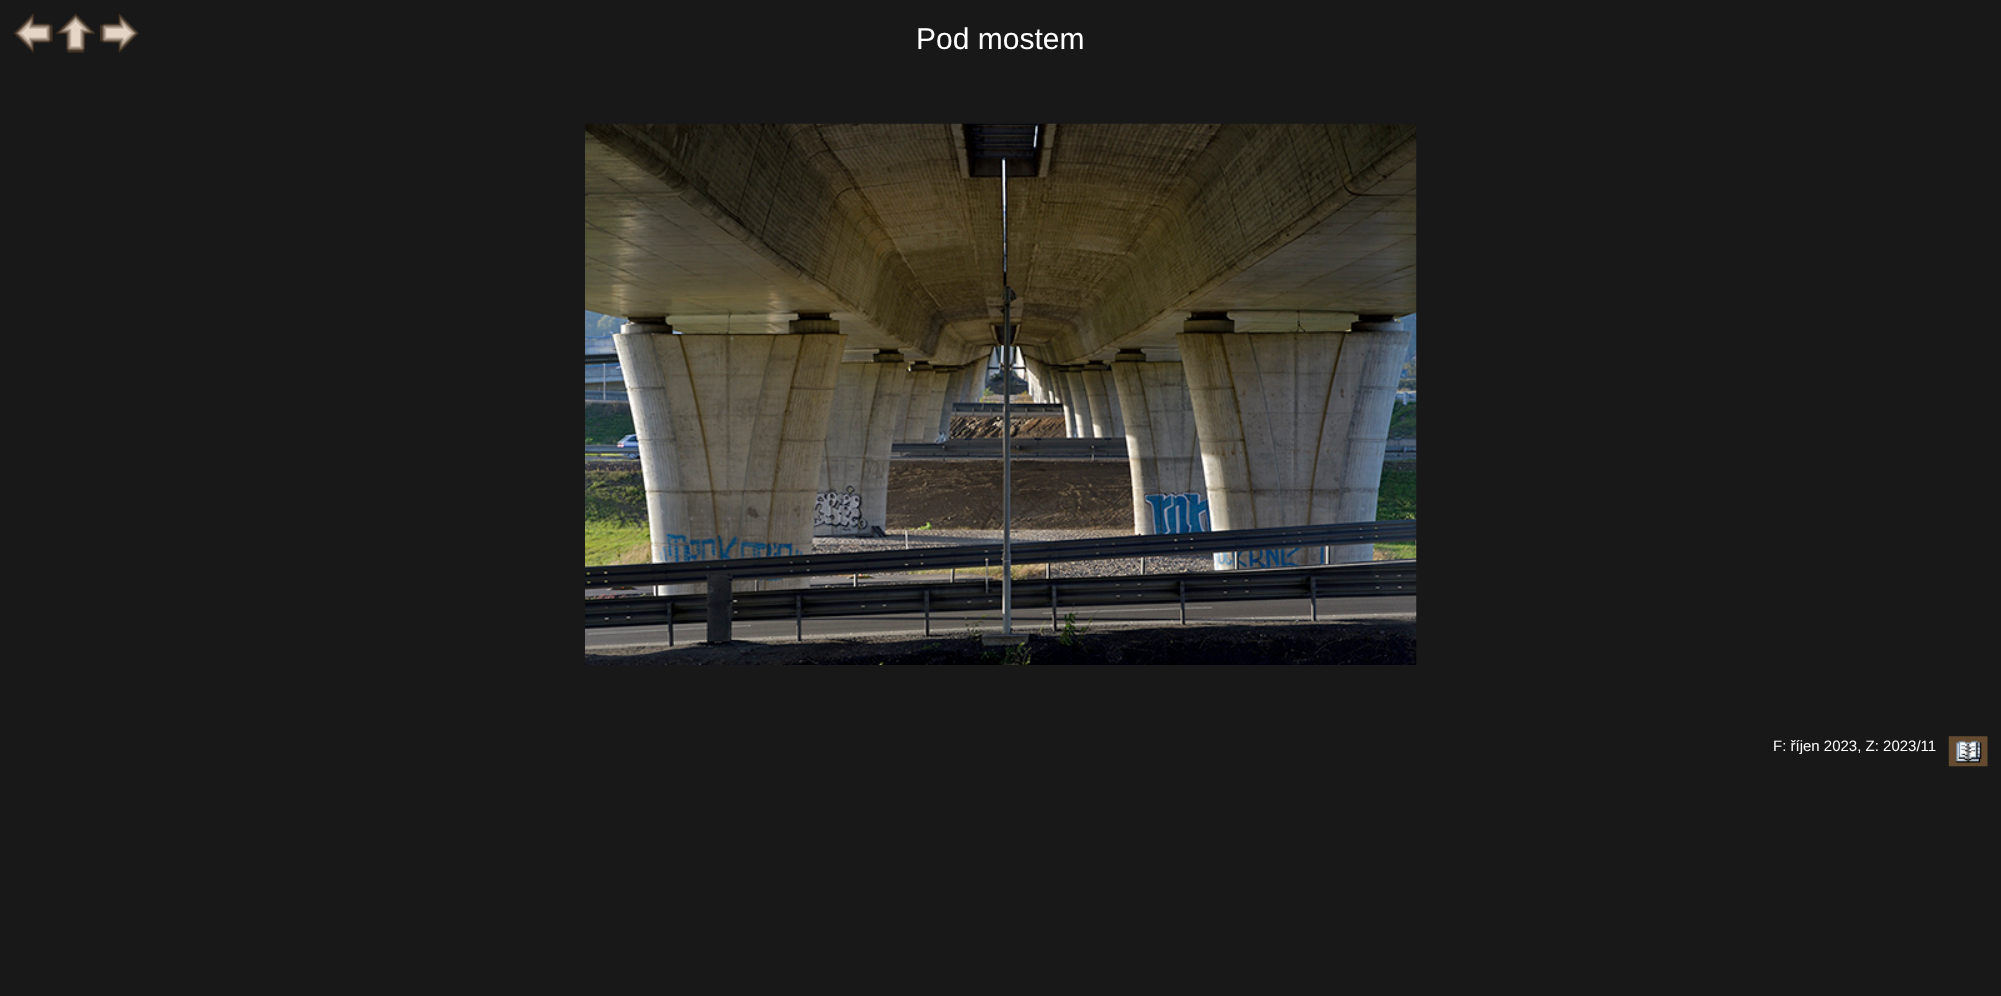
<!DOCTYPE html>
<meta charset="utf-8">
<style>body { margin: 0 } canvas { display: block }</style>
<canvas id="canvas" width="2001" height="996"></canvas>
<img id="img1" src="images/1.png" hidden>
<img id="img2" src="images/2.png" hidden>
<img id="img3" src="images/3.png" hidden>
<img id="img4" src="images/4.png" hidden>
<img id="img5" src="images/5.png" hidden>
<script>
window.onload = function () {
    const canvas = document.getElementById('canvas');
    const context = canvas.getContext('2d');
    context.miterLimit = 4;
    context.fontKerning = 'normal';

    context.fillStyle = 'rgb(24, 24, 24)';
    context.fillRect(0, 0, 2001, 996);
    context.drawImage(document.getElementById('img1'), 13, 13, 40, 40);
    context.drawImage(document.getElementById('img2'), 56, 13, 39, 40);
    context.drawImage(document.getElementById('img3'), 100, 13, 39, 40);
    context.drawImage(document.getElementById('img4'), 585, 123, 832, 542);
    context.drawImage(document.getElementById('img5'), 1948, 736, 40, 31);
    context.font = '30px Liberation Sans';
    context.fillStyle = 'rgb(255, 255, 255)';
    context.fillText('Pod mostem', 916, 49);
    context.font = '15px Liberation Sans';
    context.fillText('F: říjen 2023, Z: 2023/11', 1773, 751);
};
</script>
